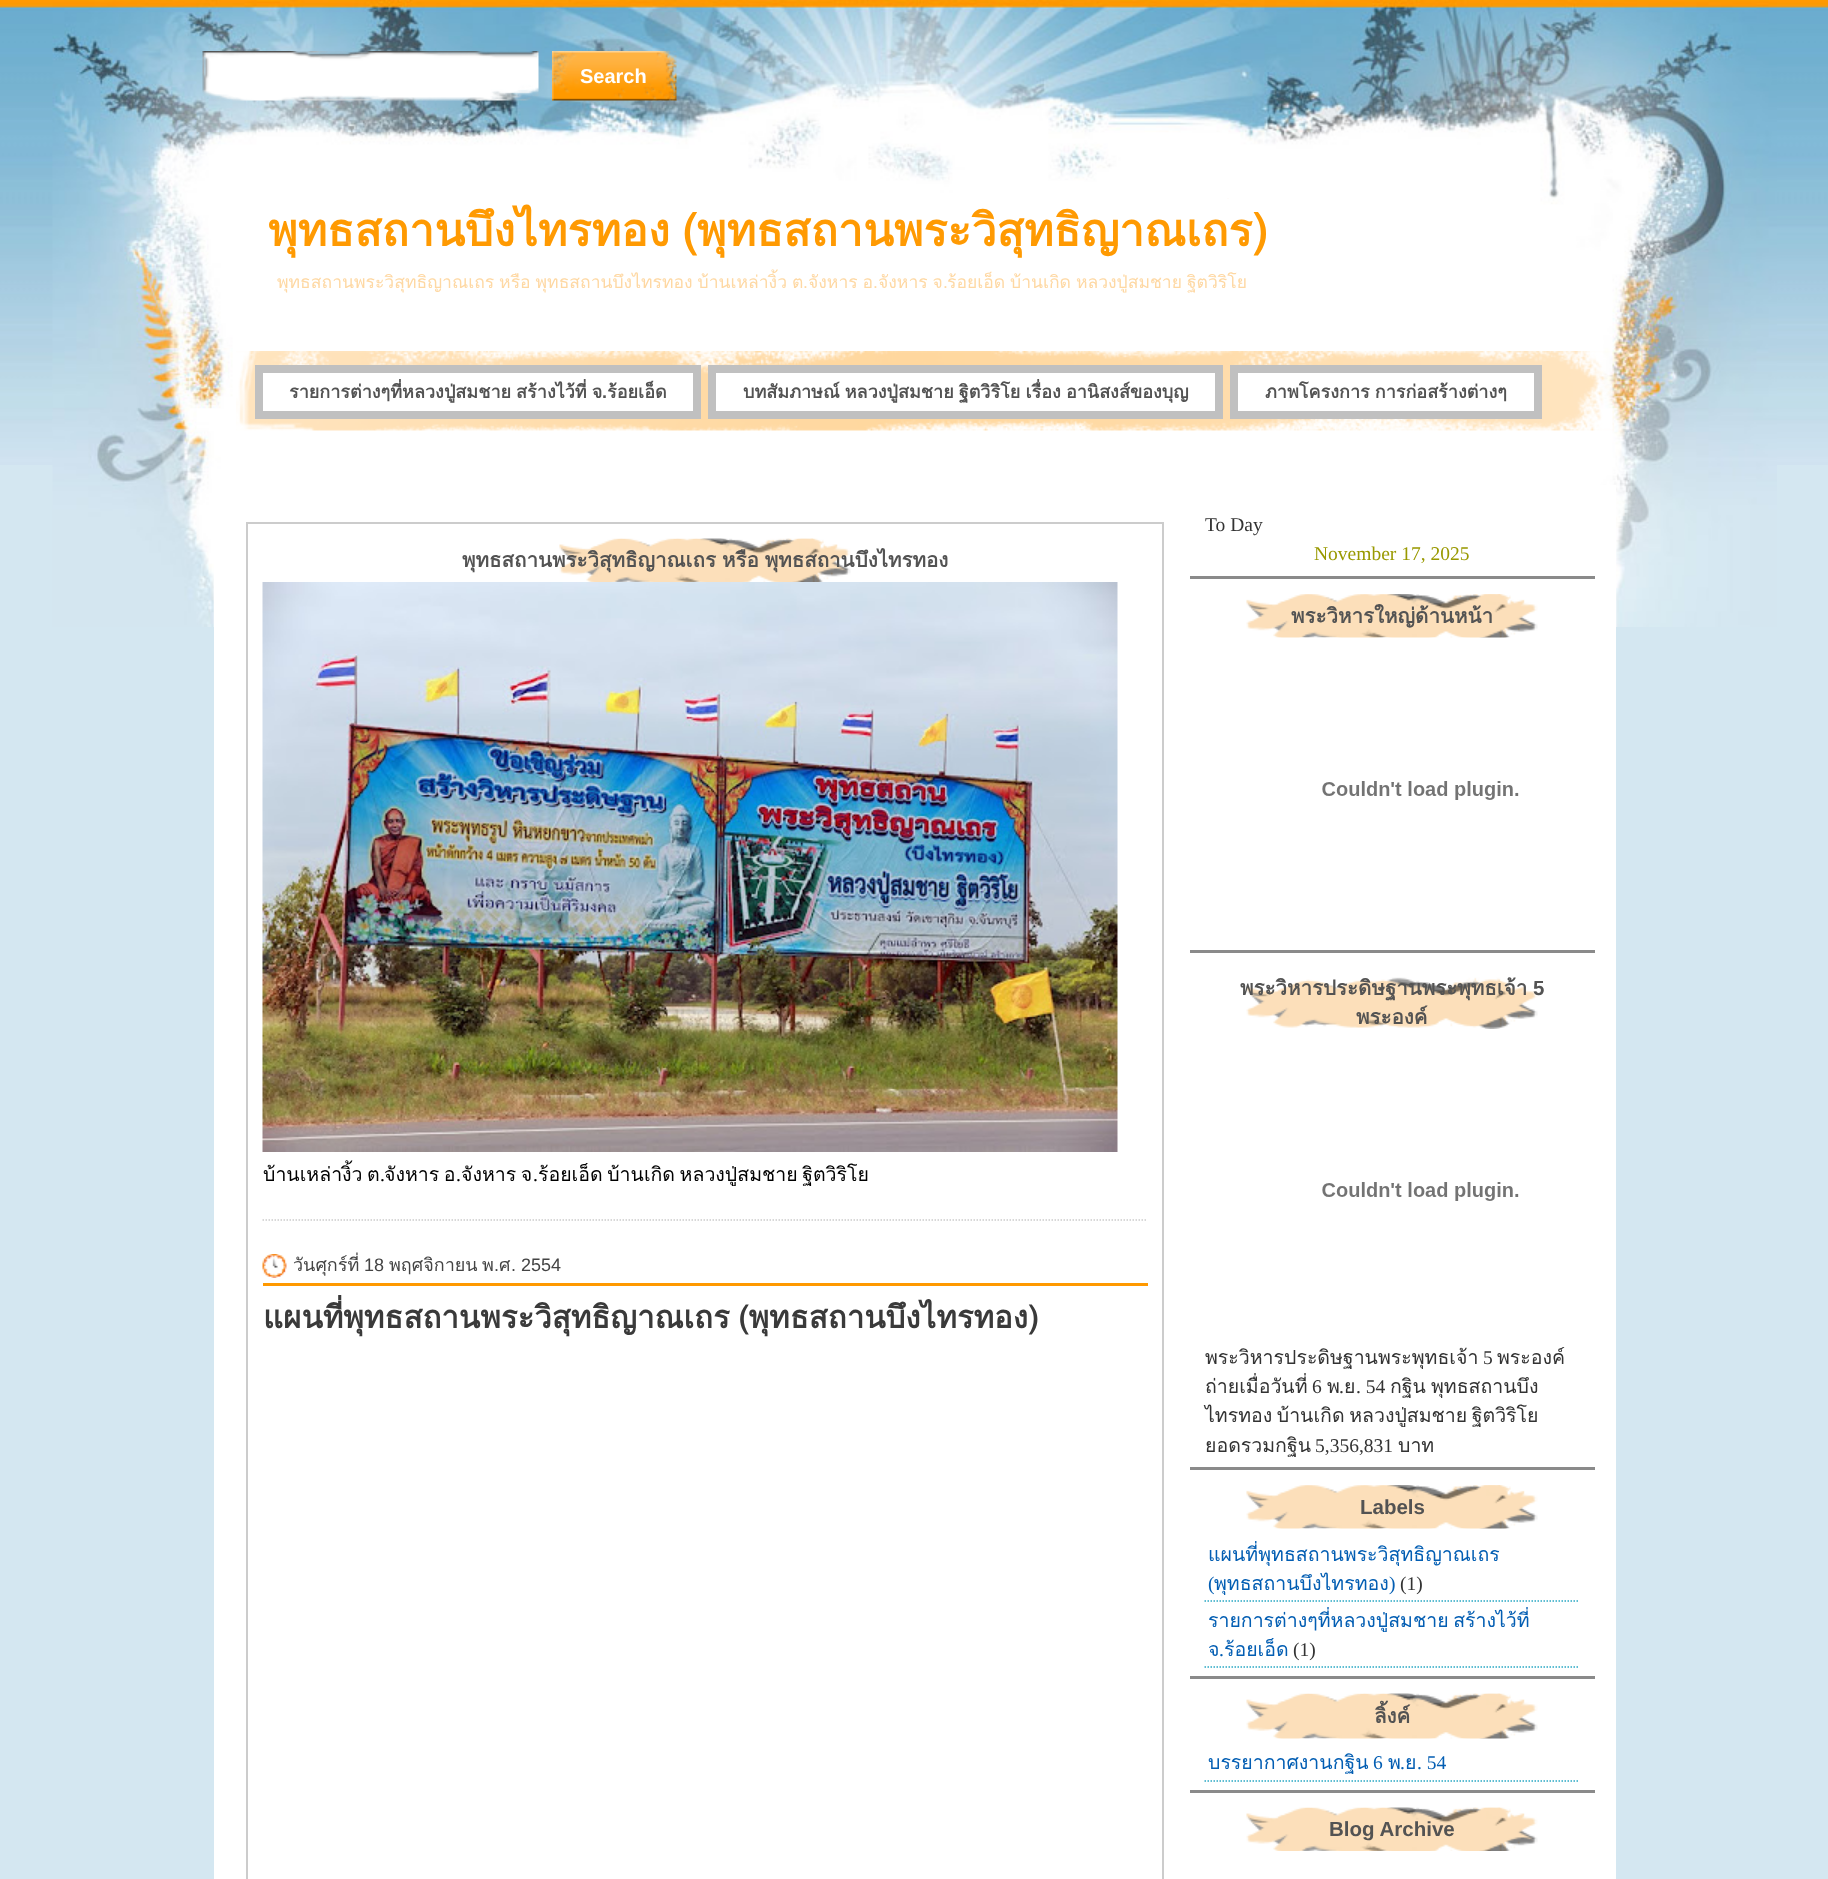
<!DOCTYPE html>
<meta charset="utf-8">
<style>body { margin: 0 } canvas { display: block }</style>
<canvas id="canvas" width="1828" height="1879"></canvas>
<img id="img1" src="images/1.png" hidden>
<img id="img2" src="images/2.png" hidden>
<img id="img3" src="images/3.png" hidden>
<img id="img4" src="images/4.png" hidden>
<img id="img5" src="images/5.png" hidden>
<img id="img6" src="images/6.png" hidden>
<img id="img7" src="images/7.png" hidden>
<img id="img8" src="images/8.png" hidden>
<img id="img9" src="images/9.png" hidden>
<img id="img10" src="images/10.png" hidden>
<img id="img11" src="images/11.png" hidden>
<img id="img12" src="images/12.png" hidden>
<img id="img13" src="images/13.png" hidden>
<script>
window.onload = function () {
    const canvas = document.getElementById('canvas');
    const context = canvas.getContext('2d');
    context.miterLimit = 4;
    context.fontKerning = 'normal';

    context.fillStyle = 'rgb(212, 231, 241)';
    context.fillRect(0, 0, 1828, 1879);
    context.drawImage(document.getElementById('img1'), 0, 0, 1828, 465);
    context.drawImage(document.getElementById('img2'), 52, 0, 1725, 627);
    context.drawImage(document.getElementById('img3'), 202, 51, 337, 50);
    context.drawImage(document.getElementById('img4'), 552, 51, 125, 50);
    context.fillStyle = 'rgb(255, 252, 250)';
    context.fillRect(1227, 198, 2, 1);
    context.drawImage(document.getElementById('img5'), 236, 351, 1378, 80);
    context.fillStyle = 'rgb(255, 255, 255)';
    context.beginPath();
    context.rect(259, 369, 438, 46);
    context.fill();
    context.strokeStyle = 'rgb(192, 192, 192)';
    context.lineWidth = 8;
    context.stroke();
    context.beginPath();
    context.rect(712, 369, 507, 46);
    context.fill();
    context.stroke();
    context.beginPath();
    context.rect(1234, 369, 304, 46);
    context.fill();
    context.stroke();
    context.fillRect(214, 485, 1402, 1394);
    context.strokeStyle = 'rgb(204, 204, 204)';
    context.lineWidth = 2;
    context.strokeRect(247, 523, 916, 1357);
    context.beginPath();
    context.moveTo(262.5, 1220);
    context.lineTo(1147.5, 1220);
    context.lineWidth = 1.5;
    context.setLineDash([1.5, 1.5]);
    context.stroke();
    context.drawImage(document.getElementById('img6'), 559, 538, 292, 44);
    context.drawImage(document.getElementById('img7'), 262, 582, 856, 570);
    context.drawImage(document.getElementById('img8'), 262, 1254, 25, 24);
    context.fillStyle = 'rgb(255, 153, 0)';
    context.fillRect(263, 1283, 885, 3);
    context.fillStyle = 'rgb(138, 138, 138)';
    context.fillRect(1190, 576, 405, 3);
    context.drawImage(document.getElementById('img9'), 1246, 594, 292, 44);
    context.fillRect(1190, 950, 405, 3);
    context.drawImage(document.getElementById('img10'), 1322, 781, 197, 19);
    context.drawImage(document.getElementById('img11'), 1246, 977, 292, 52);
    context.fillRect(1190, 1467, 405, 3);
    context.drawImage(document.getElementById('img10'), 1322, 1182, 197, 19);
    context.drawImage(document.getElementById('img9'), 1246, 1485, 292, 44);
    context.fillRect(1190, 1676, 405, 3);
    context.beginPath();
    context.moveTo(1204.5, 1601);
    context.lineTo(1579.5, 1601);
    context.strokeStyle = 'rgb(42, 168, 196)';
    context.stroke();
    context.beginPath();
    context.moveTo(1204.5, 1667);
    context.lineTo(1579.5, 1667);
    context.stroke();
    context.drawImage(document.getElementById('img12'), 1246, 1693, 292, 46);
    context.fillRect(1190, 1790, 405, 3);
    context.beginPath();
    context.moveTo(1204.5, 1781);
    context.lineTo(1579.5, 1781);
    context.stroke();
    context.drawImage(document.getElementById('img13'), 1246, 1807, 292, 44);
    context.font = 'bold 20px Liberation Sans';
    context.fillStyle = 'rgb(255, 255, 255)';
    context.fillText('Search', 580, 83);
    context.wordSpacing = '-3px';
    context.font = 'bold 44.85px Loma';
    context.fillStyle = 'rgb(255, 154, 2)';
    context.fillText('พุทธสถานบึงไทรทอง (พุทธสถานพระวิสุทธิญาณเถร)', 268, 246);
    context.wordSpacing = '-1px';
    context.font = '17.55px Loma';
    context.fillStyle = 'rgb(254, 216, 163)';
    context.fillText('พุทธสถานพระวิสุทธิญาณเถร หรือ พุทธสถานบึงไทรทอง บ้านเหล่างิ้ว ต', 277, 288);
    context.wordSpacing = '0px';
    context.font = '17.55px Liberation Sans';
    context.fillText('.', 803, 288);
    context.wordSpacing = '-1px';
    context.font = '17.55px Loma';
    context.fillText('จังหาร อ', 808, 288);
    context.wordSpacing = '0px';
    context.font = '17.55px Liberation Sans';
    context.fillText('.', 873, 288);
    context.wordSpacing = '-1px';
    context.font = '17.55px Loma';
    context.fillText('จังหาร จ', 878, 288);
    context.wordSpacing = '0px';
    context.font = '17.55px Liberation Sans';
    context.fillText('.', 943, 288);
    context.wordSpacing = '-1px';
    context.font = '17.55px Loma';
    context.fillText('ร้อยเอ็ด บ้านเกิด หลวงปู่สมชาย ฐิตวิริโย', 947, 288);
    context.font = 'bold 18px Loma';
    context.fillStyle = 'rgb(83, 83, 83)';
    context.fillText('รายการต่างๆที่หลวงปู่สมชาย สร้างไว้ที่ จ', 289, 398);
    context.wordSpacing = '0px';
    context.font = 'bold 18px Liberation Sans';
    context.fillText('.', 602, 398);
    context.font = 'bold 18px Loma';
    context.fillText('ร้อยเอ็ด', 607, 398);
    context.wordSpacing = '-1px';
    context.fillText('บทสัมภาษณ์ หลวงปู่สมชาย ฐิตวิริโย เรื่อง อานิสงส์ของบุญ', 743, 398);
    context.fillText('ภาพโครงการ การก่อสร้างต่างๆ', 1265, 398);
    context.font = 'bold 20.5px Loma';
    context.fillText('พุทธสถานพระวิสุทธิญาณเถร หรือ พุทธสถานบึงไทรทอง', 462, 567);
    context.wordSpacing = '-2px';
    context.font = '19.5px Loma';
    context.fillStyle = 'rgb(0, 0, 0)';
    context.fillText('บ้านเหล่างิ้ว ต', 263, 1181);
    context.wordSpacing = '0px';
    context.font = '19.5px Liberation Serif';
    context.fillText('.', 380, 1181);
    context.wordSpacing = '-2px';
    context.font = '19.5px Loma';
    context.fillText('จังหาร อ', 384, 1181);
    context.wordSpacing = '0px';
    context.font = '19.5px Liberation Serif';
    context.fillText('.', 456, 1181);
    context.wordSpacing = '-2px';
    context.font = '19.5px Loma';
    context.fillText('จังหาร จ', 461, 1181);
    context.wordSpacing = '0px';
    context.font = '19.5px Liberation Serif';
    context.fillText('.', 533, 1181);
    context.wordSpacing = '-2px';
    context.font = '19.5px Loma';
    context.fillText('ร้อยเอ็ด บ้านเกิด หลวงปู่สมชาย ฐิตวิริโย', 538, 1181);
    context.wordSpacing = '0px';
    context.font = '18px Loma';
    context.fillStyle = 'rgb(68, 68, 68)';
    context.fillText('วันศุกร์ที่', 293, 1271);
    context.font = '18px Liberation Sans';
    context.fillText('18', 364, 1271);
    context.font = '18px Loma';
    context.fillText('พฤศจิกายน', 389, 1271);
    context.fillText('พ', 482, 1271);
    context.font = '18px Liberation Sans';
    context.fillText('.', 494, 1271);
    context.font = '18px Loma';
    context.fillText('ศ', 499, 1271);
    context.font = '18px Liberation Sans';
    context.fillText('. 2554', 511, 1271);
    context.wordSpacing = '-2px';
    context.font = 'bold 31.2px Loma';
    context.fillStyle = 'rgb(58, 58, 58)';
    context.fillText('แผนที่พุทธสถานพระวิสุทธิญาณเถร (พุทธสถานบึงไทรทอง)', 263, 1328);
    context.wordSpacing = '0px';
    context.font = '19.5px Liberation Serif';
    context.fillStyle = 'rgb(51, 51, 51)';
    context.fillText('To Day', 1205, 531);
    context.fillStyle = 'rgb(153, 153, 0)';
    context.fillText('November 17, 2025', 1314, 560);
    context.font = 'bold 20.5px Loma';
    context.fillStyle = 'rgb(83, 83, 83)';
    context.fillText('พระวิหารใหญ่ด้านหน้า', 1291, 623);
    context.fillText('พระวิหารประดิษฐานพระพุทธเจ้า', 1240, 995);
    context.font = 'bold 20.5px Liberation Sans';
    context.fillText('5', 1533, 995);
    context.font = 'bold 20.5px Loma';
    context.fillText('พระองค์', 1356, 1024);
    context.font = '19.5px Loma';
    context.fillStyle = 'rgb(51, 51, 51)';
    context.fillText('พระวิหารประดิษฐานพระพุทธเจ้า', 1205, 1364);
    context.font = '19.5px Liberation Serif';
    context.fillText('5', 1483, 1364);
    context.font = '19.5px Loma';
    context.fillText('พระองค์', 1497, 1364);
    context.fillText('ถ่ายเมื่อวันที่', 1205, 1393);
    context.font = '19.5px Liberation Serif';
    context.fillText('6', 1312, 1393);
    context.font = '19.5px Loma';
    context.fillText('พ', 1327, 1393);
    context.font = '19.5px Liberation Serif';
    context.fillText('.', 1339, 1393);
    context.font = '19.5px Loma';
    context.fillText('ย', 1344, 1393);
    context.font = '19.5px Liberation Serif';
    context.fillText('. 54', 1356, 1393);
    context.font = '19.5px Loma';
    context.fillText('กฐิน', 1390, 1393);
    context.fillText('พุทธสถานบึง', 1431, 1393);
    context.wordSpacing = '-2px';
    context.fillText('ไทรทอง บ้านเกิด หลวงปู่สมชาย ฐิตวิริโย', 1205, 1422);
    context.wordSpacing = '0px';
    context.fillText('ยอดรวมกฐิน', 1205, 1452);
    context.font = '19.5px Liberation Serif';
    context.fillText('5,356,831', 1315, 1452);
    context.font = '19.5px Loma';
    context.fillText('บาท', 1398, 1452);
    context.font = 'bold 20.5px Liberation Sans';
    context.fillStyle = 'rgb(83, 83, 83)';
    context.fillText('Labels', 1360, 1514);
    context.font = '19.5px Loma';
    context.fillStyle = 'rgb(3, 94, 179)';
    context.fillText('แผนที่พุทธสถานพระวิสุทธิญาณเถร', 1208, 1561);
    context.font = '19.5px Liberation Serif';
    context.fillText('(', 1208, 1590);
    context.font = '19.5px Loma';
    context.fillText('พุทธสถานบึงไทรทอง', 1214, 1590);
    context.font = '19.5px Liberation Serif';
    context.fillText(')', 1389, 1590);
    context.fillStyle = 'rgb(51, 51, 51)';
    context.fillText('(1)', 1400, 1590);
    context.wordSpacing = '-2px';
    context.font = '19.5px Loma';
    context.fillStyle = 'rgb(3, 94, 179)';
    context.fillText('รายการต่างๆที่หลวงปู่สมชาย สร้างไว้ที่', 1208, 1627);
    context.wordSpacing = '0px';
    context.fillText('จ', 1208, 1656);
    context.font = '19.5px Liberation Serif';
    context.fillStyle = 'rgb(51, 51, 51)';
    context.fillText('(1)', 1293, 1656);
    context.fillStyle = 'rgb(3, 94, 179)';
    context.fillText('.', 1219, 1656);
    context.font = '19.5px Loma';
    context.fillText('ร้อยเอ็ด', 1224, 1656);
    context.font = 'bold 20.5px Loma';
    context.fillStyle = 'rgb(83, 83, 83)';
    context.fillText('ลิ้งค์', 1374, 1723);
    context.font = '19.5px Loma';
    context.fillStyle = 'rgb(3, 94, 179)';
    context.fillText('บรรยากาศงานกฐิน', 1208, 1769);
    context.font = '19.5px Liberation Serif';
    context.fillText('6', 1373, 1769);
    context.font = '19.5px Loma';
    context.fillText('พ', 1388, 1769);
    context.font = '19.5px Liberation Serif';
    context.fillText('.', 1400, 1769);
    context.font = '19.5px Loma';
    context.fillText('ย', 1405, 1769);
    context.font = '19.5px Liberation Serif';
    context.fillText('. 54', 1417, 1769);
    context.font = 'bold 20.5px Liberation Sans';
    context.fillStyle = 'rgb(83, 83, 83)';
    context.fillText('Blog Archive', 1329, 1836);
};
</script>
